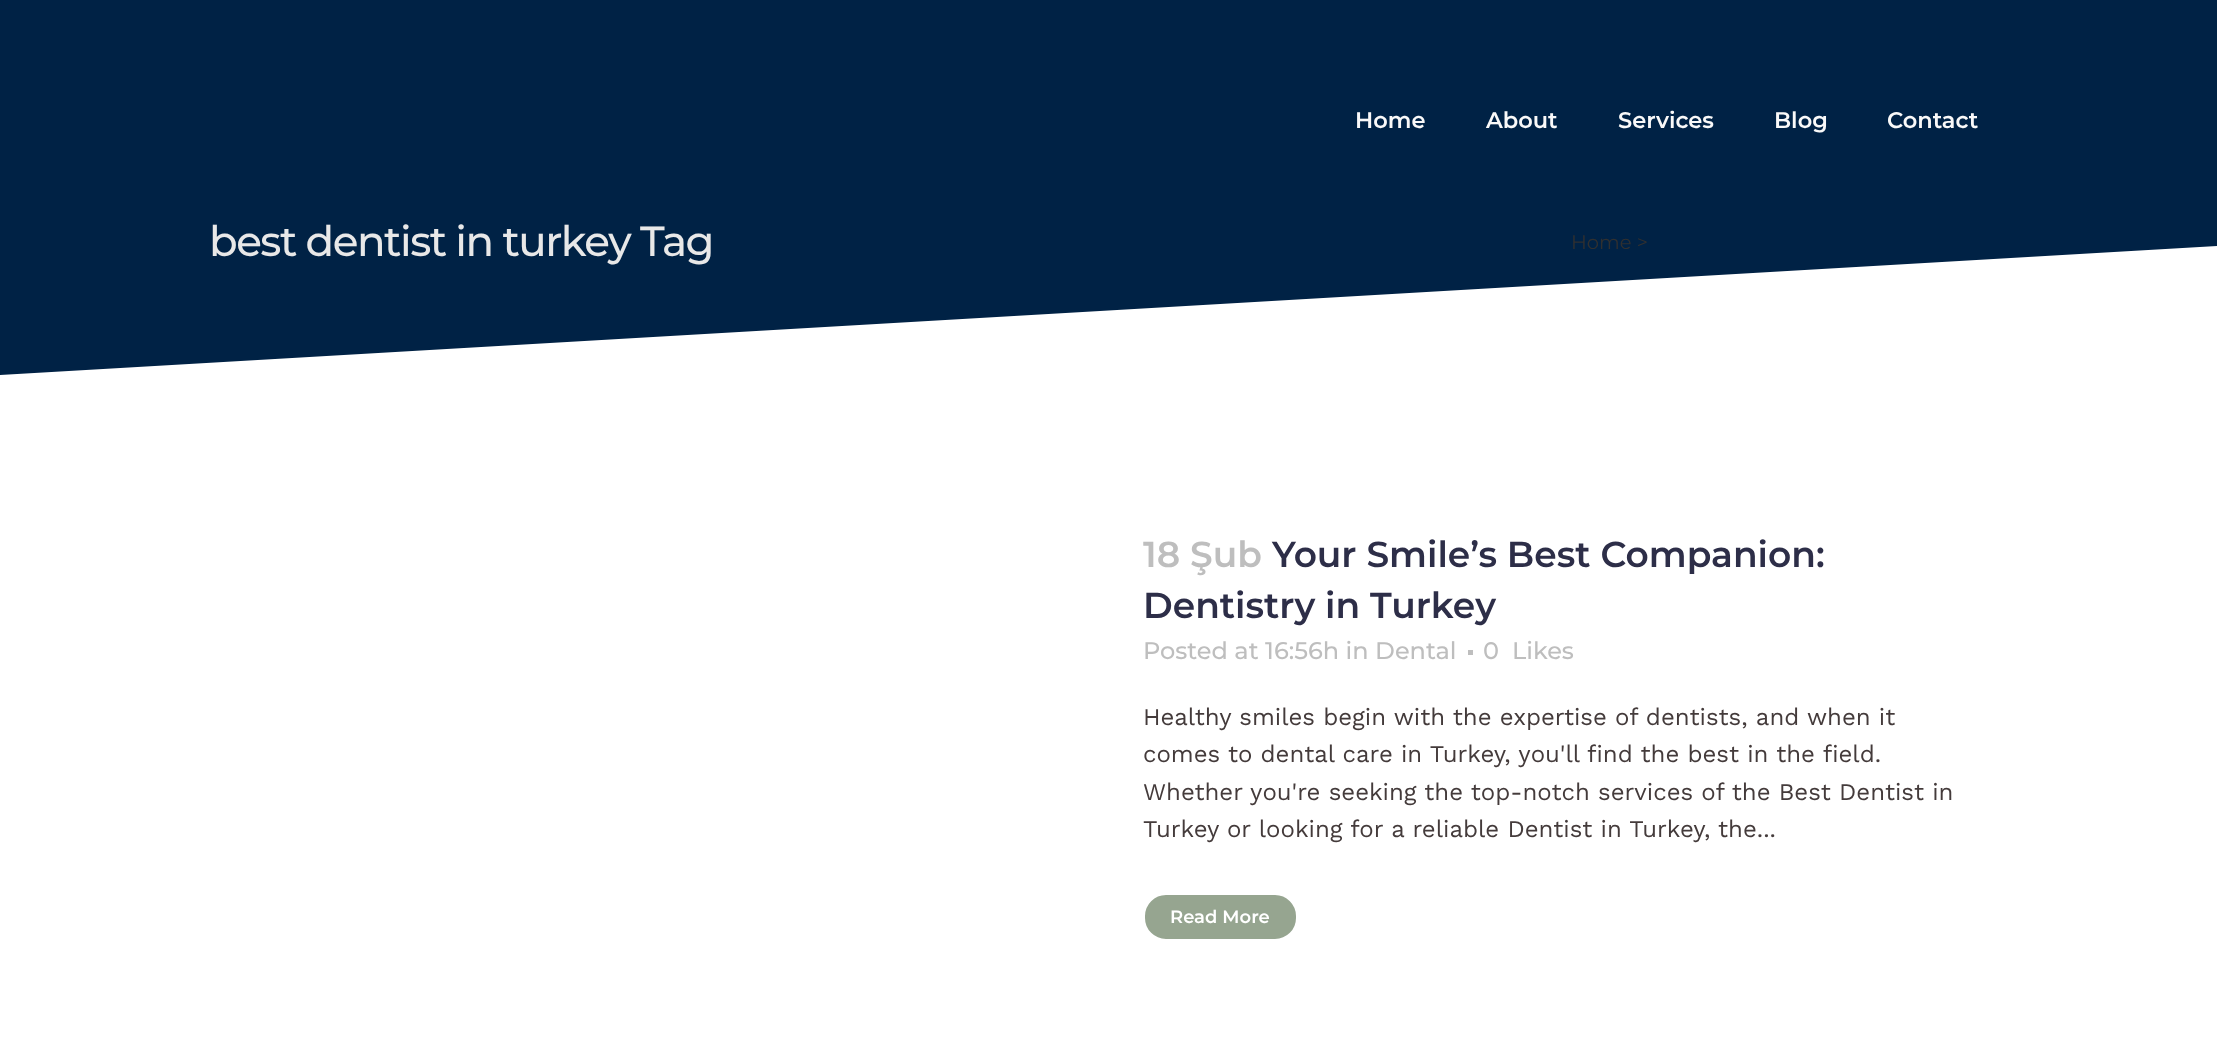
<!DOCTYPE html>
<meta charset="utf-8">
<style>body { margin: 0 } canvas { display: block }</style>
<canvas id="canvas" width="2217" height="1055"></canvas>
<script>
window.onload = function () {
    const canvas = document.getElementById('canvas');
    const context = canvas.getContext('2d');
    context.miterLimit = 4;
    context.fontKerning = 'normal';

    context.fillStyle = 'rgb(255, 255, 255)';
    context.fillRect(0, 0, 2217, 1055);
    context.fillStyle = 'rgb(0, 34, 69)';
    context.fillRect(0, 0, 2217, 375);
    context.fillStyle = 'rgb(255, 255, 255)';
    context.beginPath();
    context.moveTo(0, 375);
    context.lineTo(2217, 246);
    context.lineTo(2217, 375);
    context.closePath();
    context.fill();
    context.fillStyle = 'rgb(190, 190, 190)';
    context.fillRect(1468, 650, 5, 5);
    context.fillStyle = 'rgb(150, 165, 144)';
    context.beginPath();
    context.roundRect(1144, 894, 153, 46, 22);
    context.fill();
    context.strokeStyle = 'rgb(255, 255, 255)';
    context.lineWidth = 2;
    context.stroke();
    context.font = '600 22.5px Montserrat';
    context.fillStyle = 'rgb(249, 249, 249)';
    context.fillText('Home', 1355, 128);
    context.fillText('About', 1486, 128);
    context.fillText('Services', 1618, 128);
    context.fillText('Blog', 1774, 128);
    context.fillText('Contact', 1887, 128);
    context.letterSpacing = '-1.5px';
    context.font = '500 42px Montserrat';
    context.fillStyle = 'rgb(232, 232, 232)';
    context.fillText('best dentist in turkey Tag', 209, 256);
    context.letterSpacing = '0px';
    context.font = '19.5px Montserrat';
    context.fillStyle = 'rgb(48, 48, 48)';
    context.fillText('Home >', 1571, 249);
    context.font = '600 36px Montserrat';
    context.fillStyle = 'rgb(190, 190, 190)';
    context.fillText('18 Şub', 1143, 567);
    context.fillStyle = 'rgb(45, 46, 72)';
    context.fillText('Your Smile’s Best Companion:', 1272, 567);
    context.fillText('Dentistry in Turkey', 1143, 618);
    context.font = '500 24px Montserrat';
    context.fillStyle = 'rgb(190, 190, 190)';
    context.fillText('Posted at 16:56h in Dental', 1143, 659);
    context.fillText('0', 1483, 659);
    context.fillText('Likes', 1512, 659);
    context.font = '24px Work Sans';
    context.fillStyle = 'rgb(68, 59, 59)';
    context.fillText('Healthy smiles begin with the expertise of dentists, and when it', 1143, 725);
    context.fillText('comes to dental care in Turkey, you\'ll find the best in the field.', 1143, 762);
    context.fillText('Whether you\'re seeking the top-notch services of the Best Dentist in', 1143, 800);
    context.fillText('Turkey or looking for a reliable Dentist in Turkey, the...', 1143, 837);
    context.font = '600 18px Montserrat';
    context.fillStyle = 'rgb(255, 255, 255)';
    context.fillText('Read More', 1170, 923);
};
</script>
